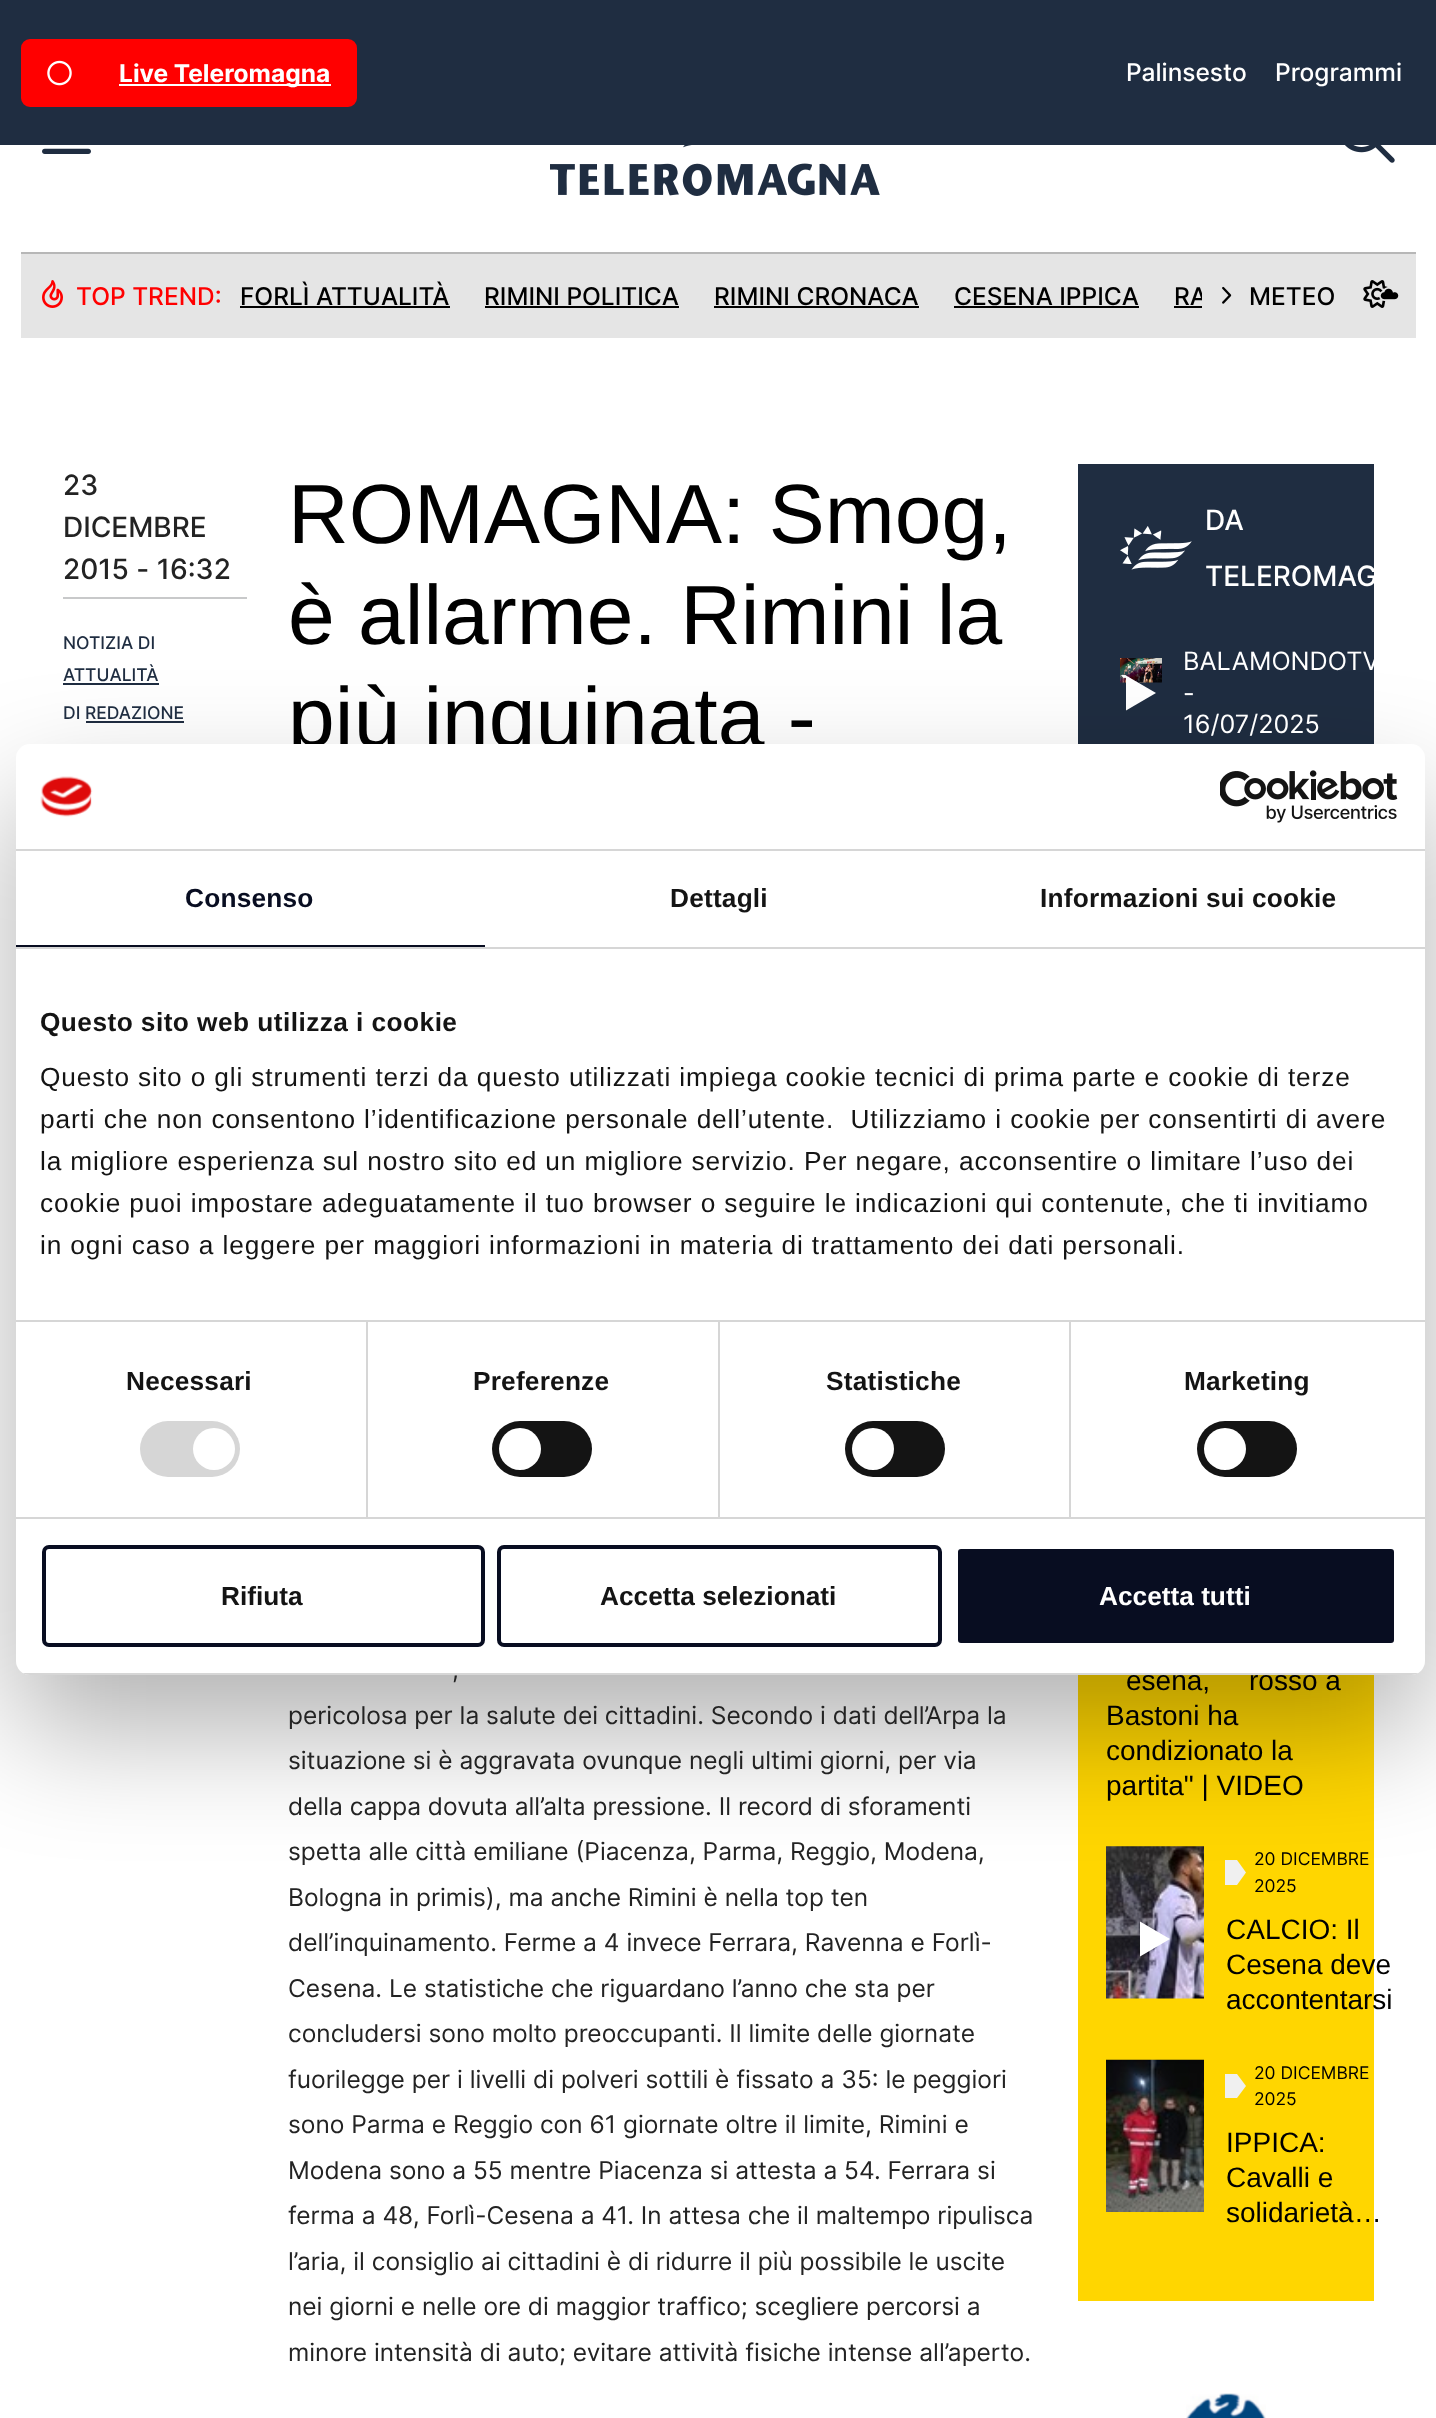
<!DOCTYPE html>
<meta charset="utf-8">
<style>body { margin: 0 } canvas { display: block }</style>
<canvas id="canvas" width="1436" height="2418"></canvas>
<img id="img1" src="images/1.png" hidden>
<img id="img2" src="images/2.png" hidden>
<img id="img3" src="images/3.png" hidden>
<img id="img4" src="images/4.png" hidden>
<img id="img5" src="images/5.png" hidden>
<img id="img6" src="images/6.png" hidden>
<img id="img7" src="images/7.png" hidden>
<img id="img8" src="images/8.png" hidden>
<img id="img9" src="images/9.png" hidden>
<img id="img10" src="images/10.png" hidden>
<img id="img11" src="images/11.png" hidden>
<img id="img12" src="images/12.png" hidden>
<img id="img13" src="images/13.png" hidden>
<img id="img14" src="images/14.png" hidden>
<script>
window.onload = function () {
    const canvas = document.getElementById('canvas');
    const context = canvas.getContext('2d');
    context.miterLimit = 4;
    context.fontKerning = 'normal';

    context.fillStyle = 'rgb(255, 255, 255)';
    context.fillRect(0, 0, 1436, 2418);
    context.fillStyle = 'rgb(31, 45, 65)';
    context.fillRect(0, 0, 1436, 145);
    context.fillStyle = 'rgb(255, 0, 0)';
    context.beginPath();
    context.roundRect(23.5, 41.5, 331, 63, 6.5);
    context.fill();
    context.strokeStyle = 'rgb(255, 0, 0)';
    context.lineWidth = 5;
    context.stroke();
    context.drawImage(document.getElementById('img1'), 47, 60, 25, 26);
    context.fillStyle = 'rgb(255, 255, 255)';
    context.fillRect(119, 84, 212, 2);
    context.drawImage(document.getElementById('img2'), 42, 148, 49, 6);
    context.drawImage(document.getElementById('img3'), 550, 145, 330, 51);
    context.drawImage(document.getElementById('img4'), 1345, 145, 50, 18);
    context.fillStyle = 'rgb(229, 229, 229)';
    context.fillRect(21, 254, 1395, 84);
    context.fillStyle = 'rgb(183, 183, 183)';
    context.fillRect(21, 252, 1395, 2);
    context.drawImage(document.getElementById('img5'), 42, 280, 21, 28);
    context.fillStyle = 'rgb(0, 0, 0)';
    context.fillRect(240, 306, 210, 2);
    context.fillRect(485, 306, 194, 2);
    context.fillRect(714, 306, 205, 2);
    context.fillRect(954, 306, 185, 2);
    context.fillRect(1174, 306, 28, 2);
    context.drawImage(document.getElementById('img6'), 1222, 286, 10, 18);
    context.drawImage(document.getElementById('img7'), 1363, 280, 36, 28);
    context.fillStyle = 'rgb(200, 201, 202)';
    context.fillRect(63, 597, 184, 2);
    context.fillStyle = 'rgb(31, 45, 65)';
    context.fillRect(63, 683, 96, 2);
    context.fillRect(86, 721, 98, 2);
    context.fillRect(1078, 464, 296, 280);
    context.drawImage(document.getElementById('img8'), 1120, 526, 72, 44);
    context.drawImage(document.getElementById('img9'), 1120, 658, 42, 25);
    context.fillStyle = 'rgb(255, 255, 255)';
    context.beginPath();
    context.moveTo(1156, 693);
    context.lineTo(1126, 710.5);
    context.lineTo(1126, 675.5);
    context.closePath();
    context.fill();
    context.fillStyle = 'rgb(255, 214, 0)';
    context.fillRect(1078, 1675, 296, 626);
    context.drawImage(document.getElementById('img10'), 1106, 1846, 98, 153);
    context.fillStyle = 'rgb(255, 255, 255)';
    context.beginPath();
    context.moveTo(1170, 1939);
    context.lineTo(1140, 1956.5);
    context.lineTo(1140, 1921.5);
    context.closePath();
    context.fill();
    context.fillStyle = 'rgb(240, 240, 240)';
    context.beginPath();
    context.moveTo(1225, 1860);
    context.lineTo(1237, 1860);
    context.lineTo(1246, 1872.5);
    context.lineTo(1237, 1885);
    context.lineTo(1225, 1885);
    context.closePath();
    context.fill();
    context.drawImage(document.getElementById('img11'), 1106, 2059, 98, 153);
    context.beginPath();
    context.moveTo(1225, 2074);
    context.lineTo(1237, 2074);
    context.lineTo(1246, 2086);
    context.lineTo(1237, 2098);
    context.lineTo(1225, 2098);
    context.closePath();
    context.fill();
    context.drawImage(document.getElementById('img12'), 1186, 2393, 80, 25);
    context.fillStyle = 'rgba(0, 0, 0, 0.3)';
    context.filter = 'blur(59.5px)';
    context.beginPath();
    context.roundRect(16, 800, 1409, 931, 14);
    context.fill();
    context.filter = 'none';
    context.font = 'bold 24.5px Inter';
    context.fillStyle = 'rgb(255, 255, 255)';
    context.fillText('Live Teleromagna', 119, 82);
    context.font = '500 24.5px Inter';
    context.fillText('Palinsesto', 1126, 81);
    context.fillText('Programmi', 1275, 81);
    context.fillStyle = 'rgb(255, 0, 0)';
    context.fillText('TOP TREND:', 76, 305);
    context.fillStyle = 'rgb(0, 0, 0)';
    context.fillText('FORLÌ ATTUALITÀ', 240, 305);
    context.fillText('RIMINI POLITICA', 484, 305);
    context.fillText('RIMINI CRONACA', 714, 305);
    context.fillText('CESENA IPPICA', 954, 305);
    context.save();
    context.beginPath();
    context.rect(21, 254, 1181, 84);
    context.clip();
    context.fillText('RA', 1174, 305);
    context.restore();
    context.fillText('METEO', 1249, 305);
    context.font = '500 28px Inter';
    context.fillStyle = 'rgb(35, 35, 35)';
    context.fillText('23', 63, 495);
    context.fillText('DICEMBRE', 63, 537);
    context.fillText('2015 - 16:32', 63, 579);
    context.font = '500 17.5px Inter';
    context.fillStyle = 'rgb(31, 45, 65)';
    context.fillText('NOTIZIA DI', 63, 649);
    context.fillText('ATTUALITÀ', 63, 681);
    context.fillText('DI REDAZIONE', 63, 719);
    context.font = '84px Liberation Sans';
    context.fillStyle = 'rgb(0, 0, 0)';
    context.fillText('ROMAGNA: Smog,', 288, 543);
    context.fillText('è allarme. Rimini la', 288, 644);
    context.fillText('più inquinata -', 288, 746);
    context.font = '24.5px Inter';
    context.fillStyle = 'rgb(35, 35, 35)';
    context.fillText(',', 452, 1678);
    context.fillText('pericolosa per la salute dei cittadini. Secondo i dati dell’Arpa la', 288, 1724);
    context.fillText('situazione si è aggravata ovunque negli ultimi giorni, per via', 288, 1769);
    context.fillText('della cappa dovuta all’alta pressione. Il record di sforamenti', 288, 1815);
    context.fillText('spetta alle città emiliane (Piacenza, Parma, Reggio, Modena,', 288, 1860);
    context.fillText('Bologna in primis), ma anche Rimini è nella top ten', 288, 1906);
    context.fillText('dell’inquinamento. Ferme a 4 invece Ferrara, Ravenna e Forlì-', 288, 1951);
    context.fillText('Cesena. Le statistiche che riguardano l’anno che sta per', 288, 1997);
    context.fillText('concludersi sono molto preoccupanti. Il limite delle giornate', 288, 2042);
    context.fillText('fuorilegge per i livelli di polveri sottili è fissato a 35: le peggiori', 288, 2088);
    context.fillText('sono Parma e Reggio con 61 giornate oltre il limite, Rimini e', 288, 2133);
    context.fillText('Modena sono a 55 mentre Piacenza si attesta a 54. Ferrara si', 288, 2179);
    context.fillText('ferma a 48, Forlì-Cesena a 41. In attesa che il maltempo ripulisca', 288, 2224);
    context.fillText('l’aria, il consiglio ai cittadini è di ridurre il più possibile le uscite', 288, 2270);
    context.fillText('nei giorni e nelle ore di maggior traffico; scegliere percorsi a', 288, 2315);
    context.fillText('minore intensità di auto; evitare attività fisiche intense all’aperto.', 288, 2361);
    context.font = '500 28px Inter';
    context.fillStyle = 'rgb(255, 255, 255)';
    context.fillText('DA', 1205, 530);
    context.fillText('TELEROMAG', 1205, 586);
    context.font = '25.25px Inter';
    context.fillText('BALAMONDOTV', 1183, 670);
    context.fillText('-', 1183, 702);
    context.fillText('16/07/2025', 1183, 733);
    context.font = '28px Liberation Sans';
    context.fillStyle = 'rgb(0, 0, 0)';
    context.fillText('esena,', 1126, 1690);
    context.fillText('rosso a', 1249, 1690);
    context.fillText('Bastoni ha', 1106, 1725);
    context.fillText('condizionato la', 1106, 1760);
    context.fillText('partita" | VIDEO', 1106, 1795);
    context.font = '17.5px Inter';
    context.fillText('20 DICEMBRE', 1254, 1865);
    context.fillText('2025', 1254, 1892);
    context.font = '28px Liberation Sans';
    context.fillText('CALCIO: Il', 1226, 1939);
    context.fillText('Cesena deve', 1226, 1974);
    context.fillText('accontentarsi', 1226, 2009);
    context.font = '17.5px Inter';
    context.fillText('20 DICEMBRE', 1254, 2079);
    context.fillText('2025', 1254, 2105);
    context.font = '28px Liberation Sans';
    context.fillText('IPPICA:', 1226, 2152);
    context.fillText('Cavalli e', 1226, 2187);
    context.fillText('solidarietà…', 1226, 2222);
    context.fillStyle = 'rgb(255, 255, 255)';
    context.beginPath();
    context.roundRect(16, 744, 1409, 931, 14);
    context.fill();
    context.fillStyle = 'rgb(214, 214, 214)';
    context.fillRect(16, 849, 1409, 2);
    context.drawImage(document.getElementById('img13'), 40, 776, 53, 41);
    context.drawImage(document.getElementById('img14'), 1220, 770, 178, 53);
    context.fillRect(16, 947, 1409, 2);
    context.fillStyle = 'rgb(8, 13, 33)';
    context.fillRect(16, 945, 469, 2);
    context.letterSpacing = '0.2px';
    context.font = 'bold 26.25px Liberation Sans';
    context.fillText('Consenso', 185, 907);
    context.fillStyle = 'rgb(20, 20, 20)';
    context.fillText('Dettagli', 670, 907);
    context.fillText('Informazioni sui cookie', 1040, 907);
    context.letterSpacing = '0.45px';
    context.fillText('Questo sito web utilizza i cookie', 40, 1031);
    context.letterSpacing = '0.88px';
    context.font = '26.25px Liberation Sans';
    context.fillText('Questo sito o gli strumenti terzi da questo utilizzati impiega cookie tecnici di prima parte e cookie di terze', 40, 1086);
    context.fillText('parti che non consentono l’identificazione personale dell’utente.  Utilizziamo i cookie per consentirti di avere', 40, 1128);
    context.fillText('la migliore esperienza sul nostro sito ed un migliore servizio. Per negare, acconsentire o limitare l’uso dei', 40, 1170);
    context.fillText('cookie puoi impostare adeguatamente il tuo browser o seguire le indicazioni qui contenute, che ti invitiamo', 40, 1212);
    context.fillText('in ogni caso a leggere per maggiori informazioni in materia di trattamento dei dati personali.', 40, 1254);
    context.fillStyle = 'rgb(214, 214, 214)';
    context.fillRect(16, 1517, 1409, 2);
    context.fillRect(366, 1321, 2, 196);
    context.letterSpacing = '0.2px';
    context.font = 'bold 26.25px Liberation Sans';
    context.fillStyle = 'rgb(20, 20, 20)';
    context.fillText('Necessari', 126, 1390);
    context.fillStyle = 'rgb(214, 214, 214)';
    context.beginPath();
    context.roundRect(140, 1421, 100, 56, 28);
    context.fill();
    context.fillStyle = 'rgb(255, 255, 255)';
    context.beginPath();
    context.arc(214, 1449, 21, 0, 2 * Math.PI);
    context.fill();
    context.fillStyle = 'rgb(214, 214, 214)';
    context.fillRect(718, 1321, 2, 196);
    context.fillStyle = 'rgb(20, 20, 20)';
    context.fillText('Preferenze', 473, 1390);
    context.beginPath();
    context.roundRect(492, 1421, 100, 56, 28);
    context.fill();
    context.fillStyle = 'rgb(255, 255, 255)';
    context.beginPath();
    context.arc(520, 1449, 21, 0, 2 * Math.PI);
    context.fill();
    context.fillStyle = 'rgb(214, 214, 214)';
    context.fillRect(1069, 1321, 2, 196);
    context.fillRect(16, 1320, 1409, 2);
    context.fillStyle = 'rgb(20, 20, 20)';
    context.fillText('Statistiche', 826, 1390);
    context.beginPath();
    context.roundRect(845, 1421, 100, 56, 28);
    context.fill();
    context.fillStyle = 'rgb(255, 255, 255)';
    context.beginPath();
    context.arc(873, 1449, 21, 0, 2 * Math.PI);
    context.fill();
    context.fillStyle = 'rgb(20, 20, 20)';
    context.fillText('Marketing', 1184, 1390);
    context.beginPath();
    context.roundRect(1197, 1421, 100, 56, 28);
    context.fill();
    context.fillStyle = 'rgb(255, 255, 255)';
    context.beginPath();
    context.arc(1225, 1449, 21, 0, 2 * Math.PI);
    context.fill();
    context.save();
    context.beginPath();
    context.roundRect(16, 744, 1409, 931, 14);
    context.clip();
    context.fillStyle = 'rgb(214, 214, 214)';
    context.fillRect(16, 1673, 1409, 2);
    context.restore();
    context.beginPath();
    context.roundRect(44, 1547, 439, 98, 5);
    context.strokeStyle = 'rgb(8, 13, 33)';
    context.lineWidth = 4;
    context.stroke();
    context.letterSpacing = '0px';
    context.fillStyle = 'rgb(20, 20, 20)';
    context.fillText('Rifiuta', 221, 1605);
    context.beginPath();
    context.roundRect(499, 1547, 441, 98, 5);
    context.stroke();
    context.fillText('Accetta selezionati', 600, 1605);
    context.fillStyle = 'rgb(8, 13, 33)';
    context.beginPath();
    context.roundRect(956, 1547, 440, 98, 5);
    context.fill();
    context.strokeStyle = 'rgb(255, 255, 255)';
    context.stroke();
    context.fillStyle = 'rgb(255, 255, 255)';
    context.fillText('Accetta tutti', 1099, 1605);
};
</script>
